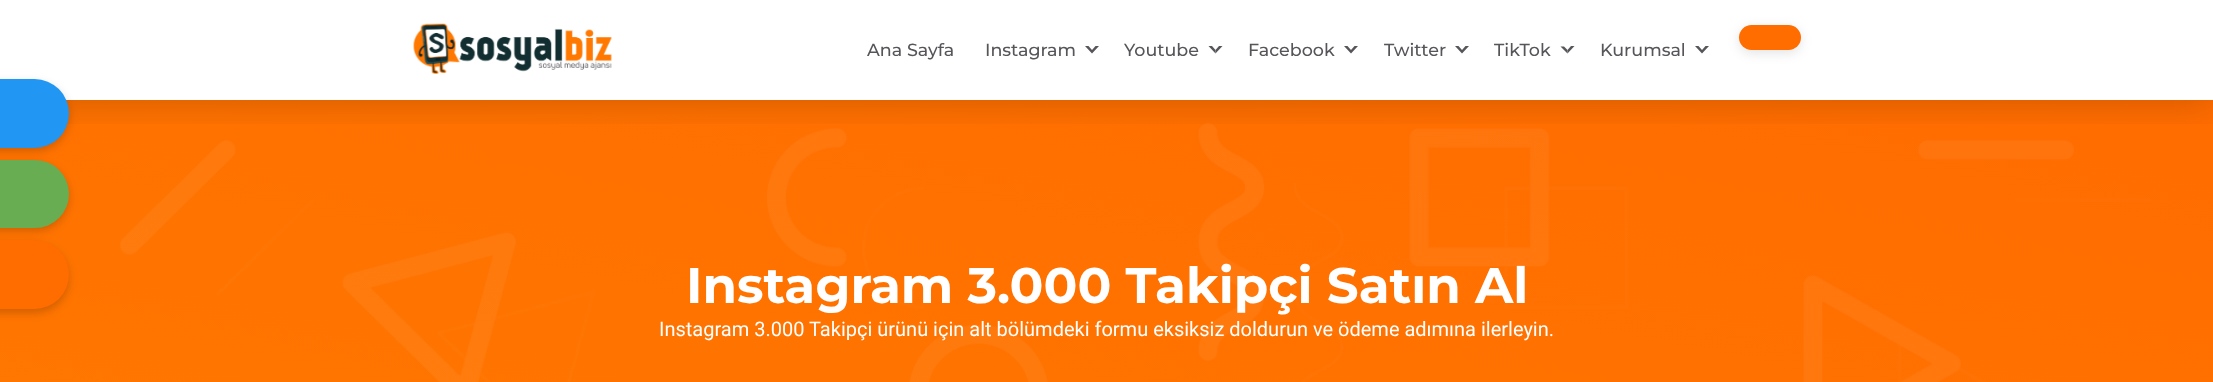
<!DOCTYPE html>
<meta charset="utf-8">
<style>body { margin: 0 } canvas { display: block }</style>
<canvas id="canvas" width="2213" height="382"></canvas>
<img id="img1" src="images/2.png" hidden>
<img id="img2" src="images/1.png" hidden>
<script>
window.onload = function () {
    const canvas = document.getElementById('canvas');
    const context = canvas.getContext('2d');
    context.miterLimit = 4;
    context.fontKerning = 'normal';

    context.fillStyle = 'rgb(255, 255, 255)';
    context.fillRect(0, 0, 2213, 382);
    context.drawImage(document.getElementById('img1'), 0, 100, 2213, 282);
    context.save();
    context.beginPath();
    context.rect(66, 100, 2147, 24);
    context.clip();
    context.fillStyle = 'rgba(0, 0, 0, 0.2)';
    context.filter = 'blur(19px)';
    context.beginPath();
    context.rect(0, 0, 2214, 100);
    context.fill();
    context.filter = 'none';
    context.restore();
    context.drawImage(document.getElementById('img2'), 413, 23, 199, 51);
    context.fillStyle = 'rgb(87, 85, 90)';
    context.beginPath();
    context.moveTo(1099, 46);
    context.lineTo(1092, 53.5);
    context.lineTo(1092, 50);
    context.lineTo(1095.5, 46);
    context.closePath();
    context.moveTo(1092, 53.5);
    context.lineTo(1085, 46);
    context.lineTo(1088.5, 46);
    context.lineTo(1092, 50);
    context.closePath();
    context.fill();
    context.beginPath();
    context.moveTo(1222.5, 46);
    context.lineTo(1215.5, 53.5);
    context.lineTo(1215.5, 50);
    context.lineTo(1219, 46);
    context.closePath();
    context.fill();
    context.beginPath();
    context.moveTo(1215.5, 53.5);
    context.lineTo(1208.5, 46);
    context.lineTo(1212, 46);
    context.lineTo(1215.5, 50);
    context.closePath();
    context.fill();
    context.beginPath();
    context.moveTo(1358, 46);
    context.lineTo(1351, 53.5);
    context.lineTo(1351, 50);
    context.lineTo(1354.5, 46);
    context.closePath();
    context.moveTo(1351, 53.5);
    context.lineTo(1344, 46);
    context.lineTo(1347.5, 46);
    context.lineTo(1351, 50);
    context.closePath();
    context.fill();
    context.beginPath();
    context.moveTo(1469, 46);
    context.lineTo(1462, 53.5);
    context.lineTo(1462, 50);
    context.lineTo(1465.5, 46);
    context.closePath();
    context.moveTo(1462, 53.5);
    context.lineTo(1455, 46);
    context.lineTo(1458.5, 46);
    context.lineTo(1462, 50);
    context.closePath();
    context.fill();
    context.beginPath();
    context.moveTo(1574.5, 46);
    context.lineTo(1567.5, 53.5);
    context.lineTo(1567.5, 50);
    context.lineTo(1571, 46);
    context.closePath();
    context.fill();
    context.beginPath();
    context.moveTo(1567.5, 53.5);
    context.lineTo(1560.5, 46.5);
    context.lineTo(1564, 46.5);
    context.lineTo(1567.5, 50);
    context.closePath();
    context.fill();
    context.beginPath();
    context.moveTo(1709, 46);
    context.lineTo(1702, 53.5);
    context.lineTo(1702, 50);
    context.lineTo(1705.5, 46);
    context.closePath();
    context.moveTo(1702, 53.5);
    context.lineTo(1695, 46);
    context.lineTo(1698.5, 46);
    context.lineTo(1702, 50);
    context.closePath();
    context.fill();
    context.fillStyle = 'rgba(0, 0, 0, 0.11)';
    context.filter = 'blur(6px)';
    context.beginPath();
    context.roundRect(1739, 28, 62, 25, 12.5);
    context.fill();
    context.filter = 'none';
    context.fillStyle = 'rgb(255, 108, 0)';
    context.beginPath();
    context.roundRect(1739, 25, 62, 25, 12.5);
    context.fill();
    context.fillStyle = 'rgba(0, 0, 0, 0.18)';
    context.filter = 'blur(4.5px)';
    context.beginPath();
    context.roundRect(-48, 83, 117, 68, 34);
    context.fill();
    context.filter = 'none';
    context.fillStyle = 'rgb(33, 150, 243)';
    context.beginPath();
    context.roundRect(-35, 79, 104, 69, 34.5);
    context.fill();
    context.fillStyle = 'rgba(0, 0, 0, 0.18)';
    context.filter = 'blur(4.5px)';
    context.beginPath();
    context.roundRect(-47, 164, 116, 67, 33.5);
    context.fill();
    context.filter = 'none';
    context.fillStyle = 'rgb(105, 173, 83)';
    context.beginPath();
    context.roundRect(-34, 160, 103, 68, 34);
    context.fill();
    context.fillStyle = 'rgba(0, 0, 0, 0.18)';
    context.filter = 'blur(4.5px)';
    context.beginPath();
    context.roundRect(-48, 244, 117, 69, 34.5);
    context.fill();
    context.filter = 'none';
    context.fillStyle = 'rgb(255, 108, 0)';
    context.beginPath();
    context.roundRect(-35, 240, 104, 69, 34.5);
    context.fill();
    context.font = '500 17.5px Montserrat';
    context.fillStyle = 'rgb(87, 85, 90)';
    context.fillText('Ana Sayfa', 867, 56);
    context.fillText('Instagram', 985, 56);
    context.fillText('Youtube', 1124, 56);
    context.fillText('Facebook', 1248, 56);
    context.fillText('Twitter', 1384, 56);
    context.fillText('TikTok', 1494, 56);
    context.fillText('Kurumsal', 1600, 56);
    context.font = 'bold 50px Montserrat';
    context.fillStyle = 'rgb(255, 255, 255)';
    context.fillText('Instagram 3.000 Takipçi Satın Al', 686, 303);
    context.font = '20px Roboto';
    context.fillText('Instagram 3.000 Takipçi ürünü için alt bölümdeki formu eksiksiz doldurun ve ödeme adımına ilerleyin.', 659, 336);
};
</script>
